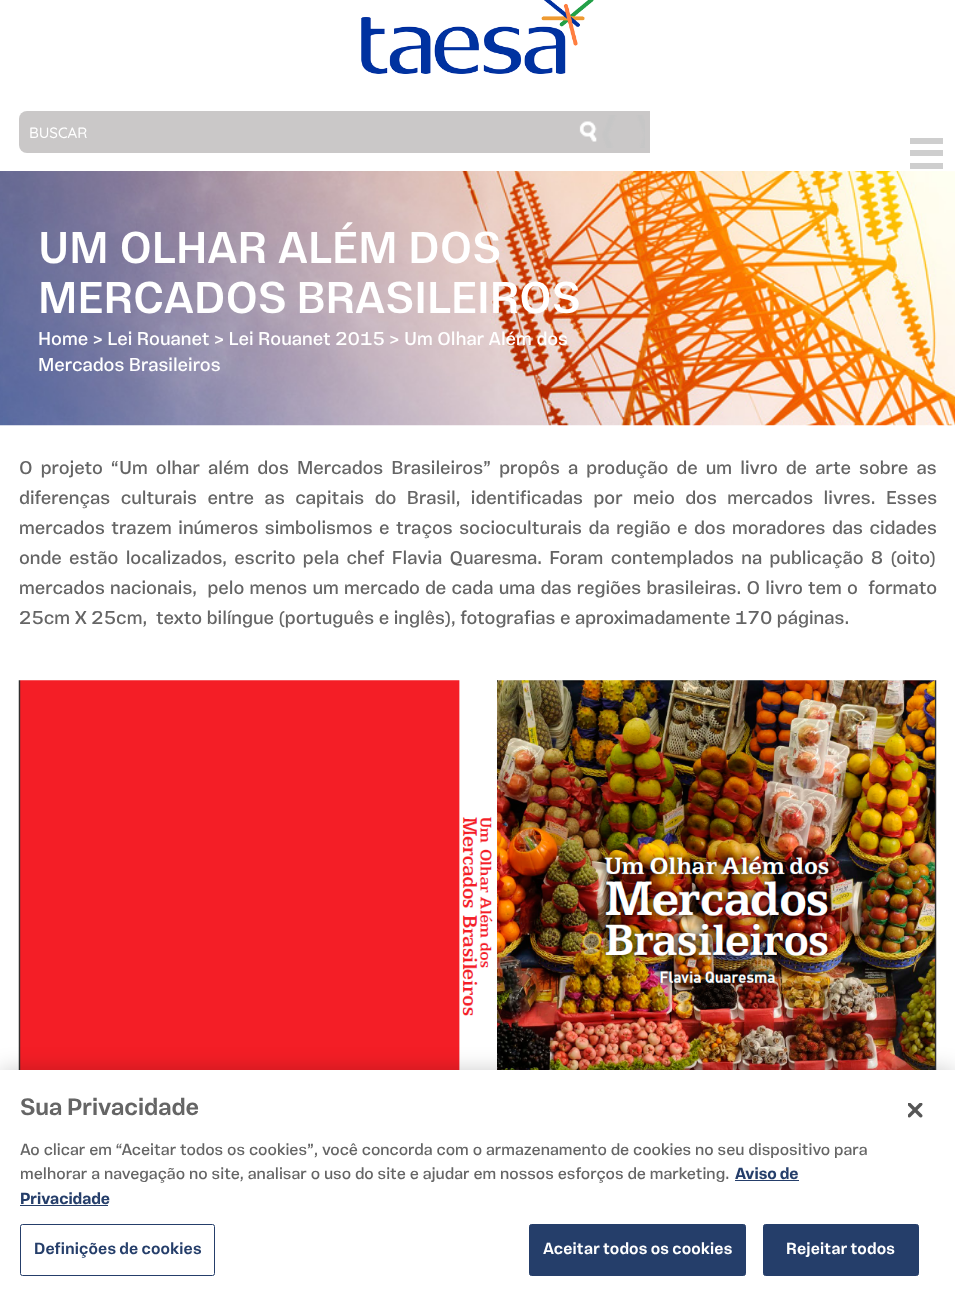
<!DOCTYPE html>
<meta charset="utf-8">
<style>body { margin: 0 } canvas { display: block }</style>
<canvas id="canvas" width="955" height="1293"></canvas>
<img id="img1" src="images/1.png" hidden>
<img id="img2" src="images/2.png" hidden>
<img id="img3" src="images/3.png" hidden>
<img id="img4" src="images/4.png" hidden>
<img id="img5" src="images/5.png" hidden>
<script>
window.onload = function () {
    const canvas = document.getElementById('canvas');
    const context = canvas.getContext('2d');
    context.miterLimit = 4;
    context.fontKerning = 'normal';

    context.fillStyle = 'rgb(255, 255, 255)';
    context.fillRect(0, 0, 955, 1293);
    context.drawImage(document.getElementById('img1'), 361, 0, 233, 74);
    context.fillStyle = 'rgb(202, 200, 200)';
    context.beginPath();
    context.roundRect(19, 111, 542, 42, [8, 0, 0, 8]);
    context.fill();
    context.fillRect(561, 111, 89, 42);
    context.drawImage(document.getElementById('img2'), 579, 115, 66, 33);
    context.fillStyle = 'rgb(206, 206, 206)';
    context.fillRect(910, 138, 33, 6);
    context.fillRect(910, 150, 33, 6);
    context.fillRect(910, 163, 33, 6);
    context.drawImage(document.getElementById('img3'), 0, 171, 955, 255);
    context.drawImage(document.getElementById('img4'), 18, 680, 919, 390);
    context.fillStyle = 'rgba(0, 0, 0, 0.2)';
    context.filter = 'blur(11px)';
    context.beginPath();
    context.rect(0, 1070, 955, 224);
    context.fill();
    context.filter = 'none';
    context.fillStyle = 'rgb(255, 255, 255)';
    context.fillRect(0, 1070, 955, 223);
    context.fillStyle = 'rgb(37, 62, 106)';
    context.fillRect(735, 1180, 64, 1);
    context.fillRect(20, 1205, 88, 1);
    context.beginPath();
    context.roundRect(20.5, 1224.5, 194, 51, 2);
    context.strokeStyle = 'rgb(37, 62, 106)';
    context.stroke();
    context.beginPath();
    context.roundRect(529.5, 1224.5, 216, 51, 2);
    context.fill();
    context.stroke();
    context.beginPath();
    context.roundRect(763.5, 1224.5, 155, 51, 2);
    context.fill();
    context.stroke();
    context.drawImage(document.getElementById('img5'), 908, 1103, 15, 15);
    context.font = '500 15px Quicksand';
    context.fillStyle = 'rgb(255, 255, 255)';
    context.fillText('BUSCAR', 29, 138);
    context.font = '500 45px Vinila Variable';
    context.fillText('UM OLHAR ALÉM DOS', 38, 263);
    context.wordSpacing = '-1px';
    context.fillText('MERCADOS BRASILEIROS', 38, 313);
    context.wordSpacing = '0px';
    context.font = '18.75px Vinila Variable';
    context.fillText('Home > Lei Rouanet > Lei Rouanet 2015 > Um Olhar Além dos', 38, 345);
    context.fillText('Mercados Brasileiros', 38, 371);
    context.wordSpacing = '3.6px';
    context.fillStyle = 'rgb(101, 101, 101)';
    context.fillText('O projeto “Um olhar além dos Mercados Brasileiros” propôs a produção de um livro de arte sobre as', 19, 474);
    context.wordSpacing = '6px';
    context.fillText('diferenças culturais entre as capitais do Brasil, identificadas por meio dos mercados livres. Esses', 19, 504);
    context.wordSpacing = '2px';
    context.fillText('mercados trazem inúmeros simbolismos e traços socioculturais da região e dos moradores das cidades', 19, 534);
    context.wordSpacing = '2.75px';
    context.fillText('onde estão localizados, escrito pela chef Flavia Quaresma. Foram contemplados na publicação 8 (oito)', 19, 564);
    context.wordSpacing = '0.7px';
    context.fillText('mercados nacionais,  pelo menos um mercado de cada uma das regiões brasileiras. O livro tem o  formato', 19, 594);
    context.wordSpacing = '0px';
    context.fillText('25cm X 25cm,  texto bilíngue (português e inglês), fotografias e aproximadamente 170 páginas.', 19, 624);
    context.wordSpacing = '-1px';
    context.font = '600 24px Vinila Variable';
    context.fillText('Sua Privacidade', 20, 1115);
    context.wordSpacing = '0px';
    context.font = '16.25px Vinila Variable';
    context.fillText('Ao clicar em “Aceitar todos os cookies”, você concorda com o armazenamento de cookies no seu dispositivo para', 20, 1155);
    context.fillText('melhorar a navegação no site, analisar o uso do site e ajudar em nossos esforços de marketing.', 20, 1179);
    context.wordSpacing = '-1px';
    context.font = 'bold 16.25px Vinila Variable';
    context.fillStyle = 'rgb(37, 62, 106)';
    context.fillText('Aviso de', 735, 1179);
    context.wordSpacing = '0px';
    context.fillText('Privacidade', 20, 1204);
    context.letterSpacing = '0.2px';
    context.wordSpacing = '-1px';
    context.font = '600 16.25px Vinila Variable';
    context.fillText('Definições de cookies', 34, 1254);
    context.fillStyle = 'rgb(255, 255, 255)';
    context.fillText('Aceitar todos os cookies', 543, 1254);
    context.fillText('Rejeitar todos', 786, 1254);
};
</script>
